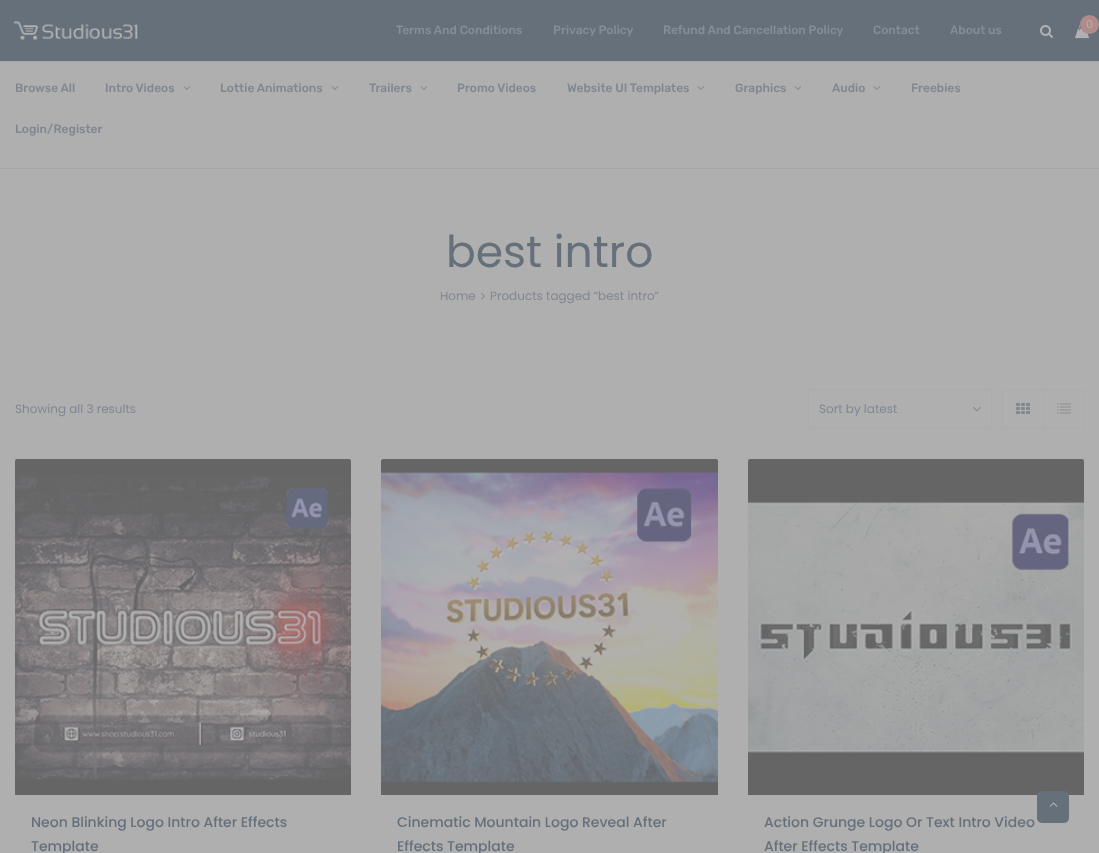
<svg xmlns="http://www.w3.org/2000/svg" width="1099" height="853">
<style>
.a{font:500 12px Rubik;fill:#878d97}
.b{font:11px Poppins;fill:#b1b1b1}
.c{font:500 12px Rubik;fill:#818790}
.d{font:44px Poppins;fill:#65707b}
.e{font:12px Poppins;fill:#818790}
.f{font:500 14px Poppins;fill:#65707b}
</style>
<rect width="100%" height="100%" fill="#afafb0"/>
<path fill="#65707b" d="M0 0h1099v61H0z"/>
<image href="1.png" x="13" y="21" width="125" height="19"/>
<image href="2.png" x="1040" y="25" width="13" height="13"/>
<image href="3.png" x="1075" y="24" width="14" height="15"/>
<circle fill="#b18a8a" cx="1089.5" cy="24.5" r="9.5"/>
<path fill="#a2a7ad" d="M0 61h1099v1H0z"/>
<path fill="#a2a7ad" d="M0 168h1099v1H0z"/>
<image href="4.png" x="183" y="86" width="8" height="4"/>
<image href="4.png" x="331" y="86" width="8" height="4"/>
<image href="4.png" x="420" y="86" width="8" height="4"/>
<image href="4.png" x="697" y="86" width="8" height="4"/>
<image href="4.png" x="794" y="86" width="8" height="4"/>
<image href="4.png" x="873" y="86" width="8" height="4"/>
<image href="5.png" x="481" y="292" width="4" height="8"/>
<image href="6.png" x="973" y="407" width="8" height="4"/>
<rect fill="none" stroke="#ababab" x="808.5" y="389.5" width="183" height="39" rx="1.5"/>
<rect fill="none" stroke="#ababab" x="1002.5" y="389.5" width="81" height="39" rx="1.5"/>
<image href="7.png" x="1016" y="403" width="14" height="11"/>
<path fill="#ababab" d="M1043 390h1v38H1043z"/>
<image href="8.png" x="1057" y="403" width="14" height="11"/>
<image href="9.png" x="15" y="459" width="336" height="336"/>
<image href="10.png" x="381" y="459" width="337" height="336"/>
<image href="11.png" x="748" y="459" width="336" height="336"/>
<rect fill="#65707b" x="1037" y="791" width="32" height="32" rx="5"/>
<image href="12.png" x="1049" y="802" width="9" height="5"/>
<text class="a" x="396" y="34">Terms And Conditions</text>
<text class="a" x="553" y="34">Privacy Policy</text>
<text class="a" x="663" y="34">Refund And Cancellation Policy</text>
<text class="a" x="873" y="34">Contact</text>
<text class="a" x="950" y="34">About us</text>
<text class="b" x="1086" y="28">0</text>
<text class="c" x="15" y="92">Browse All</text>
<text class="c" x="105" y="92">Intro Videos</text>
<text class="c" x="220" y="92">Lottie Animations</text>
<text class="c" x="369" y="92">Trailers</text>
<text class="c" x="457" y="92">Promo Videos</text>
<text class="c" x="567" y="92">Website UI Templates</text>
<text class="c" x="735" y="92">Graphics</text>
<text class="c" x="832" y="92">Audio</text>
<text class="c" x="911" y="92">Freebies</text>
<text class="c" x="15" y="133">Login/Register</text>
<text class="d" x="446" y="267">best intro</text>
<text class="e" x="440" y="300">Home</text>
<text class="e" x="490" y="300">Products tagged “best intro”</text>
<text class="e" x="15" y="413">Showing all 3 results</text>
<text class="e" x="819" y="413">Sort by latest</text>
<text class="f" x="31" y="827">Neon Blinking Logo Intro After Effects</text>
<text class="f" x="31" y="851">Template</text>
<text class="f" x="397" y="827">Cinematic Mountain Logo Reveal After</text>
<text class="f" x="397" y="851">Effects Template</text>
<text class="f" x="764" y="827">Action Grunge Logo Or Text Intro Video</text>
<text class="f" x="764" y="851">After Effects Template</text>
</svg>
